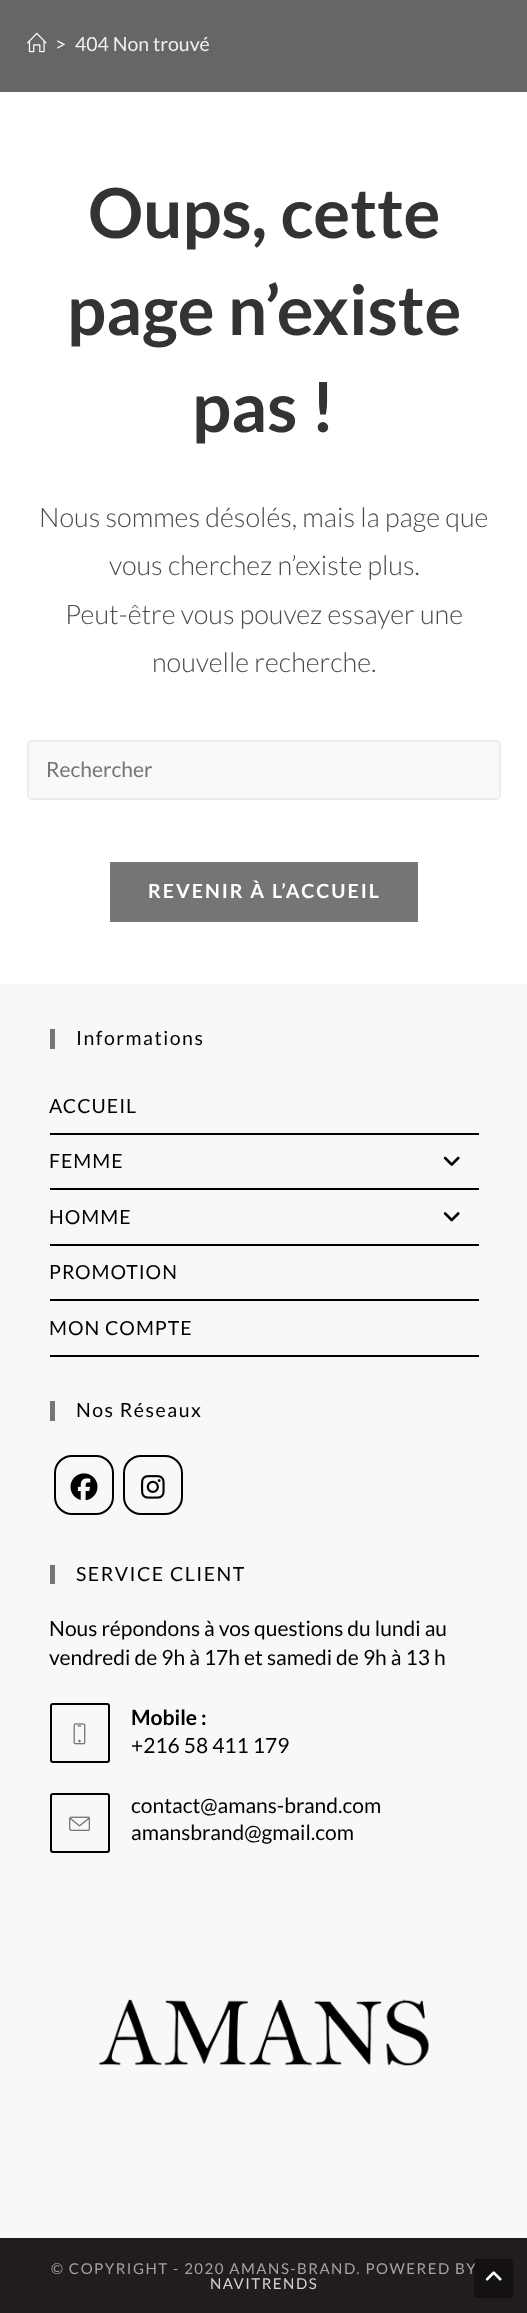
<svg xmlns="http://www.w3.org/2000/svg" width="527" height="2313">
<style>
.a{font:19.5px Lato;fill:#efefef}
.b{font:bold 69px Lato;fill:#333}
.c{font:300 27px Lato;fill:#4a4a4a}
.d{font:21px Lato;fill:#757575}
.e{font:bold 19.5px Lato;letter-spacing:2px;fill:#fff}
.f{font:19.5px Lato;letter-spacing:1.5px;fill:#000}
.g{font:19.5px Lato;letter-spacing:1px;fill:#000}
.h{font:21px Lato;fill:#000}
.i{font:bold 21px Lato;fill:#000}
.j{font:15px Lato;letter-spacing:1.5px;fill:#a3a3a3}
.k{font:15px Lato;letter-spacing:1.5px;fill:#d3d3d3}
</style>
<rect width="100%" height="100%" fill="#fff"/>
<path fill="#666" d="M0 0h527v92H0z"/>
<image href="1.png" x="27" y="32" width="20" height="21"/>
<rect fill="#f9f9f9" stroke="#ececec" stroke-width="2" x="28" y="741" width="472" height="58" rx="4"/>
<path fill="#757575" d="M110 862h308v60H110z"/>
<path fill="#f8f8f8" d="M0 984h527v1254H0z"/>
<path fill="#757575" d="M50 1029h5v20H50z"/>
<path fill="#000" d="M50 1133h429v2H50z"/>
<path fill="#000" d="M50 1188h429v2H50z"/>
<image href="2.png" x="443" y="1156" width="17" height="10"/>
<path fill="#000" d="M50 1244h429v2H50z"/>
<image href="3.png" x="443" y="1212" width="17" height="10"/>
<path fill="#000" d="M50 1299h429v2H50z"/>
<path fill="#000" d="M50 1355h429v2H50z"/>
<path fill="#757575" d="M50 1401h5v20H50z"/>
<rect fill="none" stroke="#000" stroke-width="2" x="55" y="1456" width="58" height="58" rx="17"/>
<image href="4.png" x="70" y="1473" width="28" height="28"/>
<rect fill="none" stroke="#000" stroke-width="2" x="124" y="1456" width="58" height="58" rx="17"/>
<image href="5.png" x="141" y="1475" width="24" height="24"/>
<path fill="#757575" d="M50 1565h5v19H50z"/>
<rect fill="none" stroke="#000" stroke-width="2" x="51" y="1704" width="58" height="58" rx="2"/>
<image href="6.png" x="73" y="1723" width="13" height="22"/>
<rect fill="none" stroke="#000" stroke-width="2" x="51" y="1794" width="58" height="58" rx="2"/>
<image href="7.png" x="69" y="1816" width="21" height="15"/>
<image href="8.png" x="98" y="1999" width="331" height="67"/>
<path fill="#221d1d" d="M0 2238h527v75H0z"/>
<text class="a" x="55" y="51">&gt;</text>
<text class="a" x="75" y="51">404 Non trouvé</text>
<text class="b" x="88" y="238">Oups, cette</text>
<text class="b" x="67" y="335">page n’existe</text>
<text class="b" x="192" y="432">pas !</text>
<text class="c" x="39" y="527">Nous sommes désolés, mais la page que</text>
<text class="c" x="109" y="575">vous cherchez n’existe plus.</text>
<text class="c" x="65" y="624">Peut-être vous pouvez essayer une</text>
<text class="c" x="152" y="672">nouvelle recherche.</text>
<text class="d" x="46" y="777">Rechercher</text>
<text class="e" x="148" y="898">REVENIR À L’ACCUEIL</text>
<text class="f" x="76" y="1045">Informations</text>
<text class="g" x="49" y="1113">ACCUEIL</text>
<text class="g" x="49" y="1168">FEMME</text>
<text class="g" x="49" y="1224">HOMME</text>
<text class="g" x="49" y="1279">PROMOTION</text>
<text class="g" x="49" y="1335">MON COMPTE</text>
<text class="f" x="76" y="1417">Nos Réseaux</text>
<text class="f" x="76" y="1581">SERVICE CLIENT</text>
<text class="h" x="49" y="1636">Nous répondons à vos questions du lundi au</text>
<text class="h" x="49" y="1665">vendredi de 9h à 17h et samedi de 9h à 13 h</text>
<text class="i" x="131" y="1725">Mobile :</text>
<text class="h" x="131" y="1753">+216 58 411 179</text>
<text class="h" x="131" y="1813">contact@amans-brand.com</text>
<text class="h" x="131" y="1840">amansbrand@gmail.com</text>
<text class="j" x="51" y="2274">© COPYRIGHT - 2020 AMANS-BRAND. POWERED BY</text>
<text class="k" x="210" y="2289">NAVITRENDS</text>
<rect fill="#00000066" x="474" y="2259" width="39" height="39" rx="3"/>
<image href="9.png" x="485" y="2271" width="17" height="10"/>
</svg>
